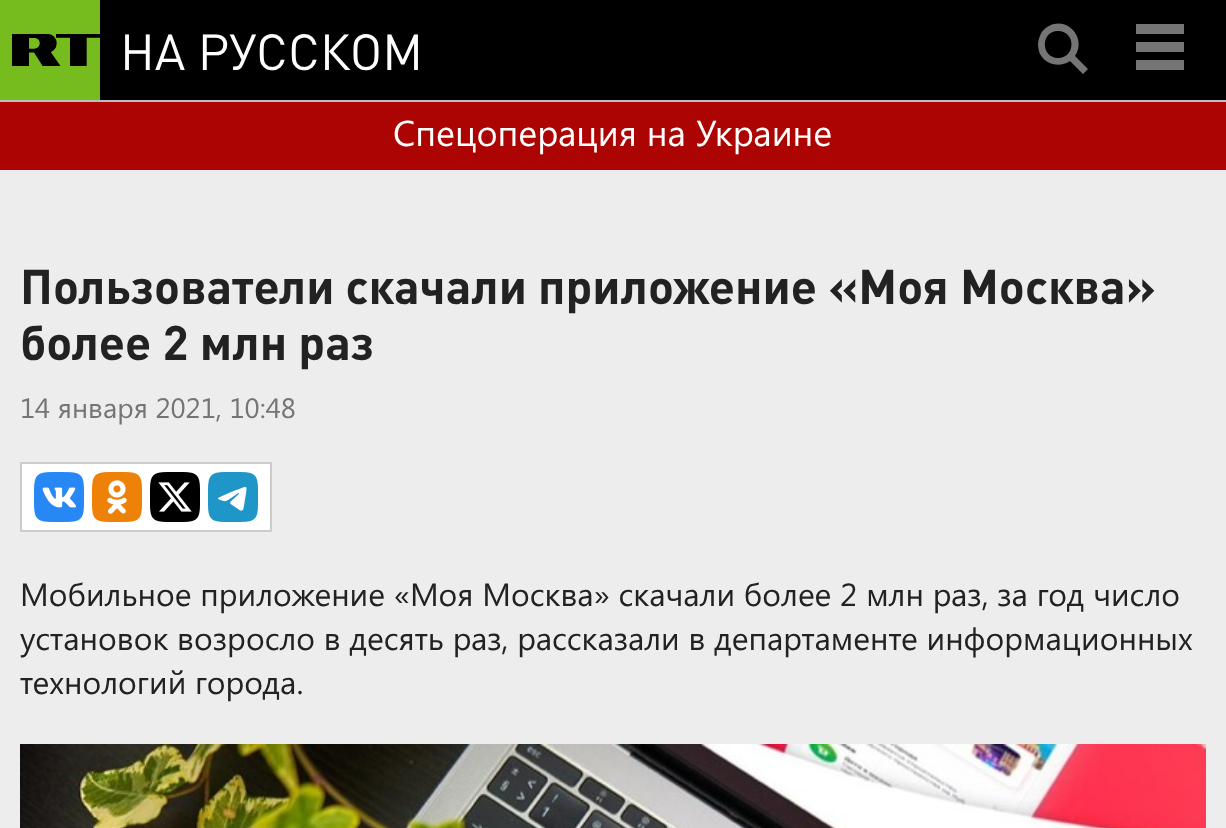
<svg xmlns="http://www.w3.org/2000/svg" width="1226" height="828">
<style>
.a{font:50px DIN;fill:#fff}
.b{font:36px Segoe UI;fill:#fff}
.c{font:bold 48px DIN;fill:#222}
.d{font:28px Segoe UI;fill:#757575}
.e{font:32px Segoe UI;fill:#222}
</style>
<rect width="100%" height="100%" fill="#000"/>
<path fill="#bebebe" d="M0 100h1226v2H0z"/>
<path fill="#77bc1f" d="M0 0h100v100H0z"/>
<image href="1.png" x="12" y="34" width="88" height="32"/>
<path fill="#757575" d="M1088 69l-5 5l-13-13c-10 7-24 4-30-7c-2-5-3-12 0-18c1-4 5-8 9-10c19-10 38 13 26 30zm-30-38c-18 0-17 27 0 27c18 0 18-27 0-27z"/>
<path fill="#757575" d="M1136 60h48v10H1136z"/>
<path fill="#757575" d="M1136 24h48v10H1136z"/>
<path fill="#757575" d="M1136 42h48v10H1136z"/>
<path fill="#ac0303" d="M0 102h1226v68H0z"/>
<path fill="#ededed" d="M0 170h1226v658H0z"/>
<path fill="#fff" stroke="#ccc" stroke-width="2" d="M21 463h250v68H21z"/>
<image href="2.png" x="34" y="472" width="50" height="50"/>
<image href="3.png" x="92" y="472" width="50" height="50"/>
<image href="4.png" x="150" y="472" width="50" height="50"/>
<image href="5.png" x="208" y="472" width="50" height="50"/>
<image href="6.png" x="20" y="744" width="1186" height="84"/>
<text class="a" x="120" y="70">НА РУССКОМ</text>
<text class="b" x="393" y="146">Спецоперация на Украине</text>
<text class="c" x="20" y="304">Пользователи скачали приложение «Моя Москва»</text>
<text class="c" x="20" y="360">более 2 млн раз</text>
<text class="d" x="20" y="418">14 января 2021, 10:48</text>
<text class="e" x="20" y="606">Мобильное приложение «Моя Москва» скачали более 2 млн раз, за год число</text>
<text class="e" x="20" y="650">установок возросло в десять раз, рассказали в департаменте информационных</text>
<text class="e" x="20" y="694">технологий города.</text>
</svg>
